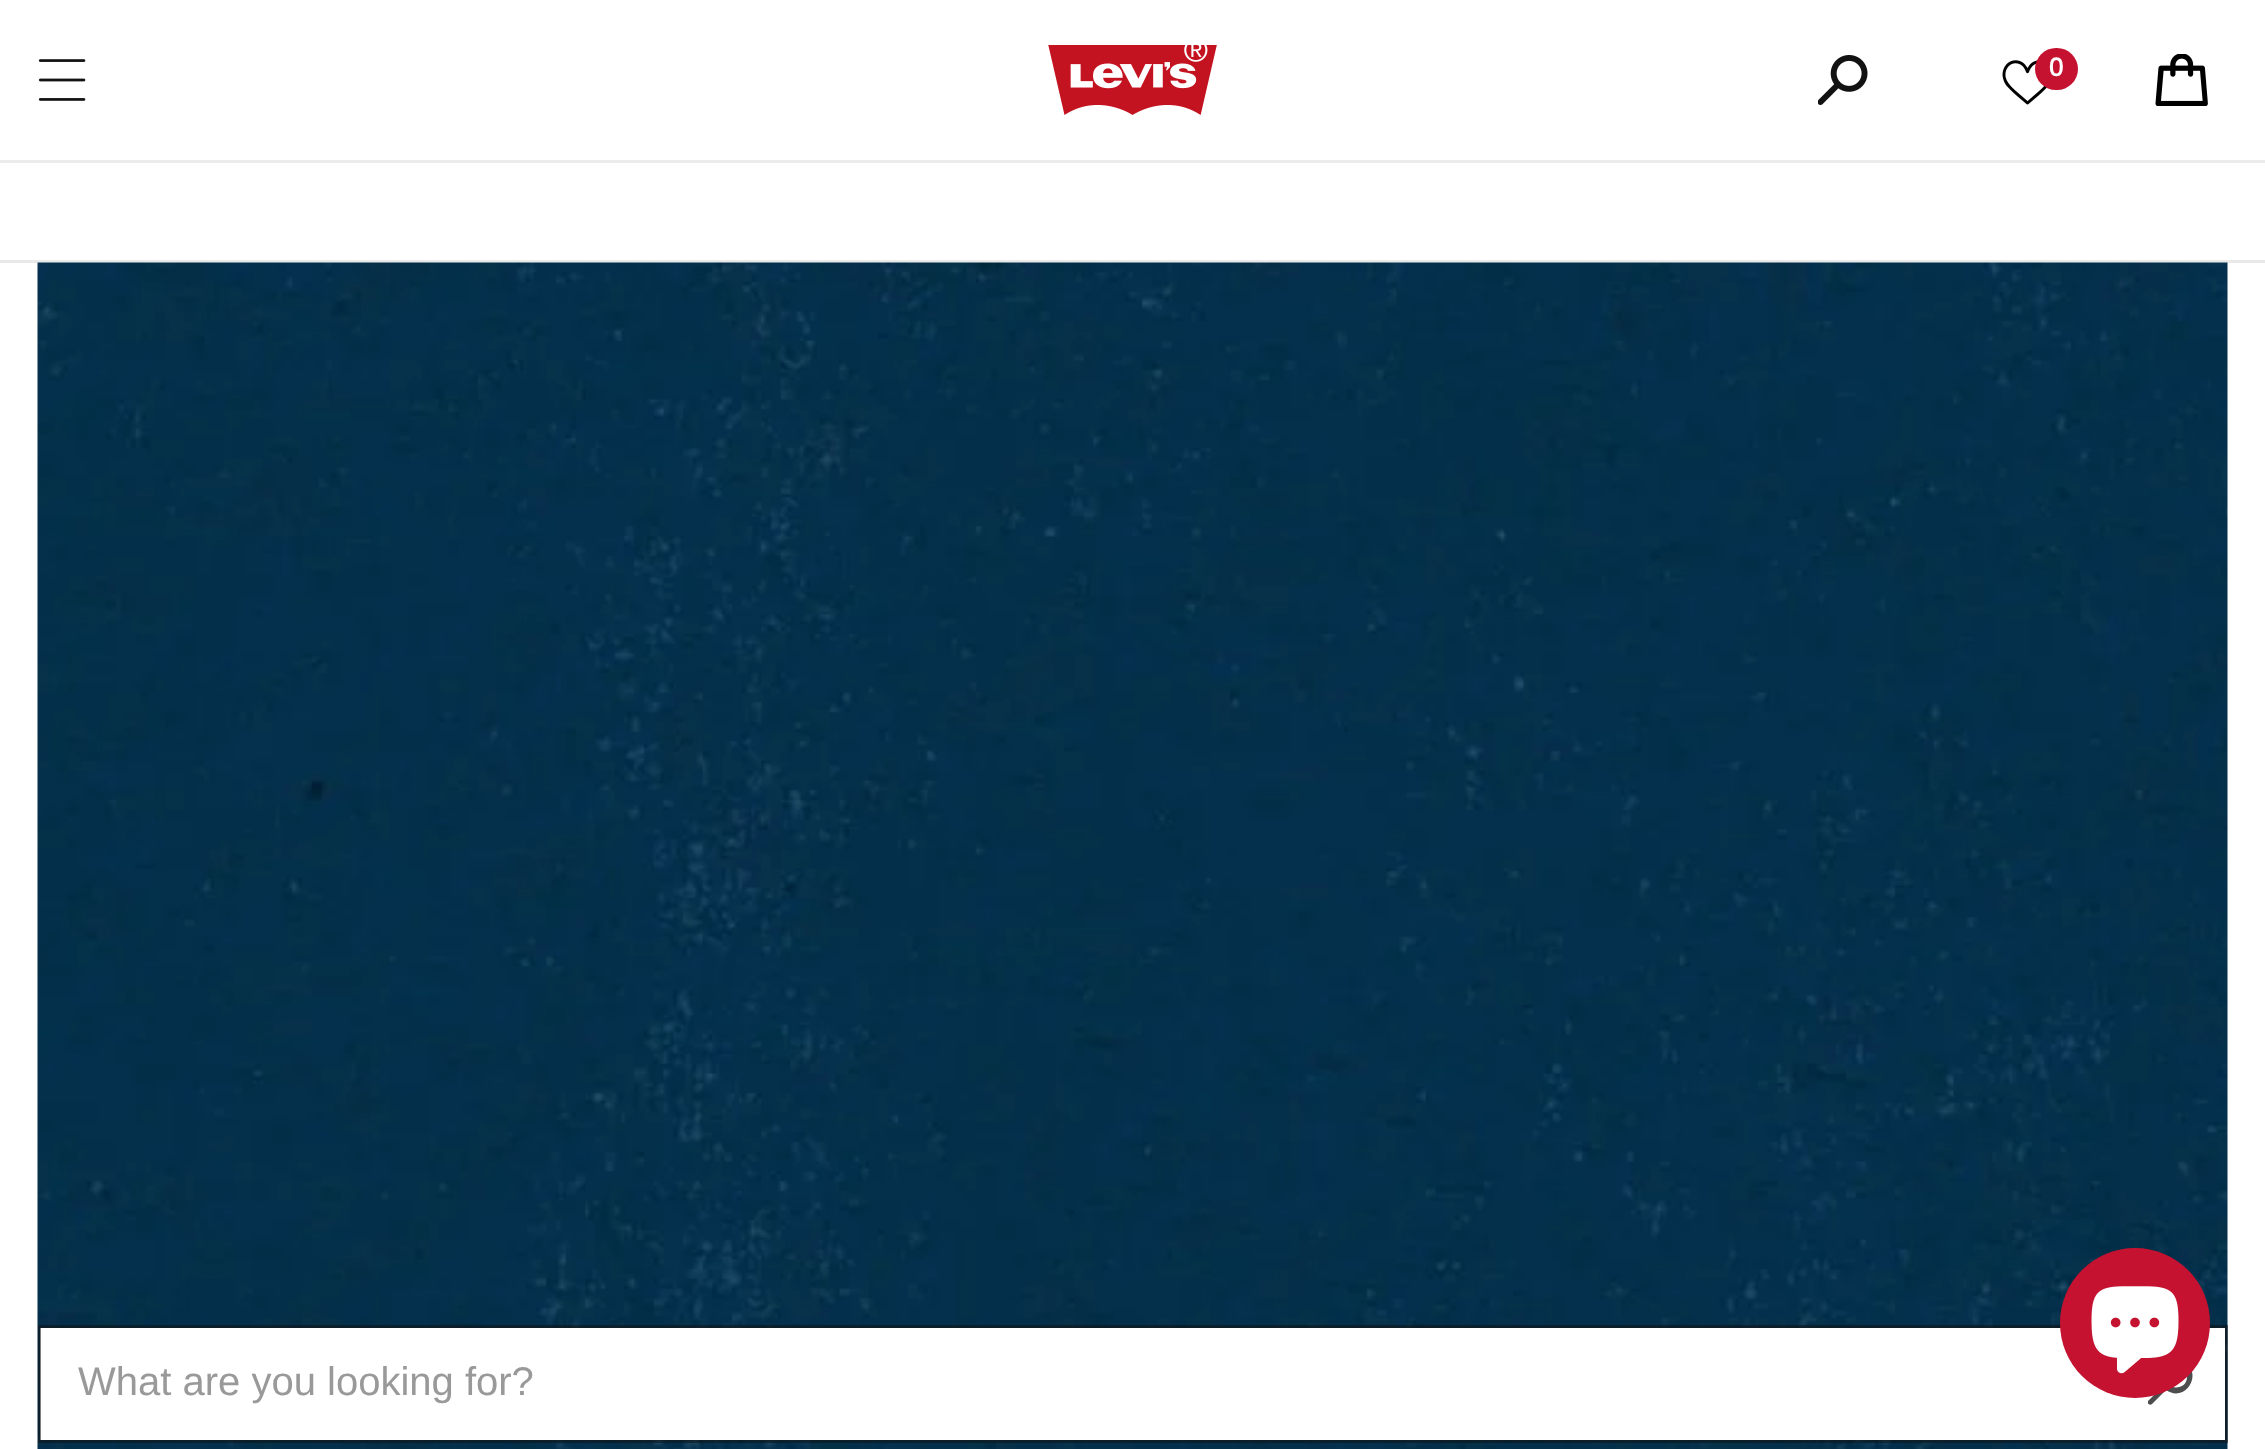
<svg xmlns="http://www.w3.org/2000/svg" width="2265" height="1449">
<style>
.a{font:bold 25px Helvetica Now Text;fill:#fff}
.b{font:40px Liberation Sans;fill:#999}
</style>
<defs>
<clipPath id="clip1"><path d="M2148 1360h45v45H2148z"/></clipPath>
</defs>
<rect width="100%" height="100%" fill="#fff"/>
<path fill="#ececec" d="M0 160h2265v3H0z"/>
<image href="1.png" x="38" y="59" width="48" height="42"/>
<image href="2.png" x="1048" y="45" width="169" height="70"/>
<image href="3.png" x="1818" y="55" width="50" height="50"/>
<image href="4.png" x="2002" y="60" width="45" height="45"/>
<rect fill="#c41230" x="2035" y="48" width="43" height="42" rx="21"/>
<image href="5.png" x="2155" y="54" width="53" height="52"/>
<path fill="#e9e9e9" d="M0 260h2265v3H0z"/>
<image href="6.png" x="37" y="262" width="2191" height="1187"/>
<path fill="#fff" d="M40 1328h2185v112H40z"/>
<g clip-path="url(#clip1)">
<path fill="#4d4d4d" fill-rule="evenodd" d="M2165 1377c0 14 22 14 22 0c0-15-22-15-22 0zm1 13c20 14 39-19 16-29c-4-2-10-1-14 1c-9 5-11 16-5 24l-15 15c-2 2 2 5 4 3z"/>
</g>
<path fill="none" stroke="#1212128c" stroke-width="3" d="M39.5 1326.5h2187v115H39.5z"/>
<circle fill="#c41230" cx="2135" cy="1323" r="75"/>
<image href="7.png" x="2091" y="1286" width="88" height="88"/>
<text class="a" x="2048" y="76">0</text>
<text class="b" x="78" y="1395">What are you looking for?</text>
</svg>
